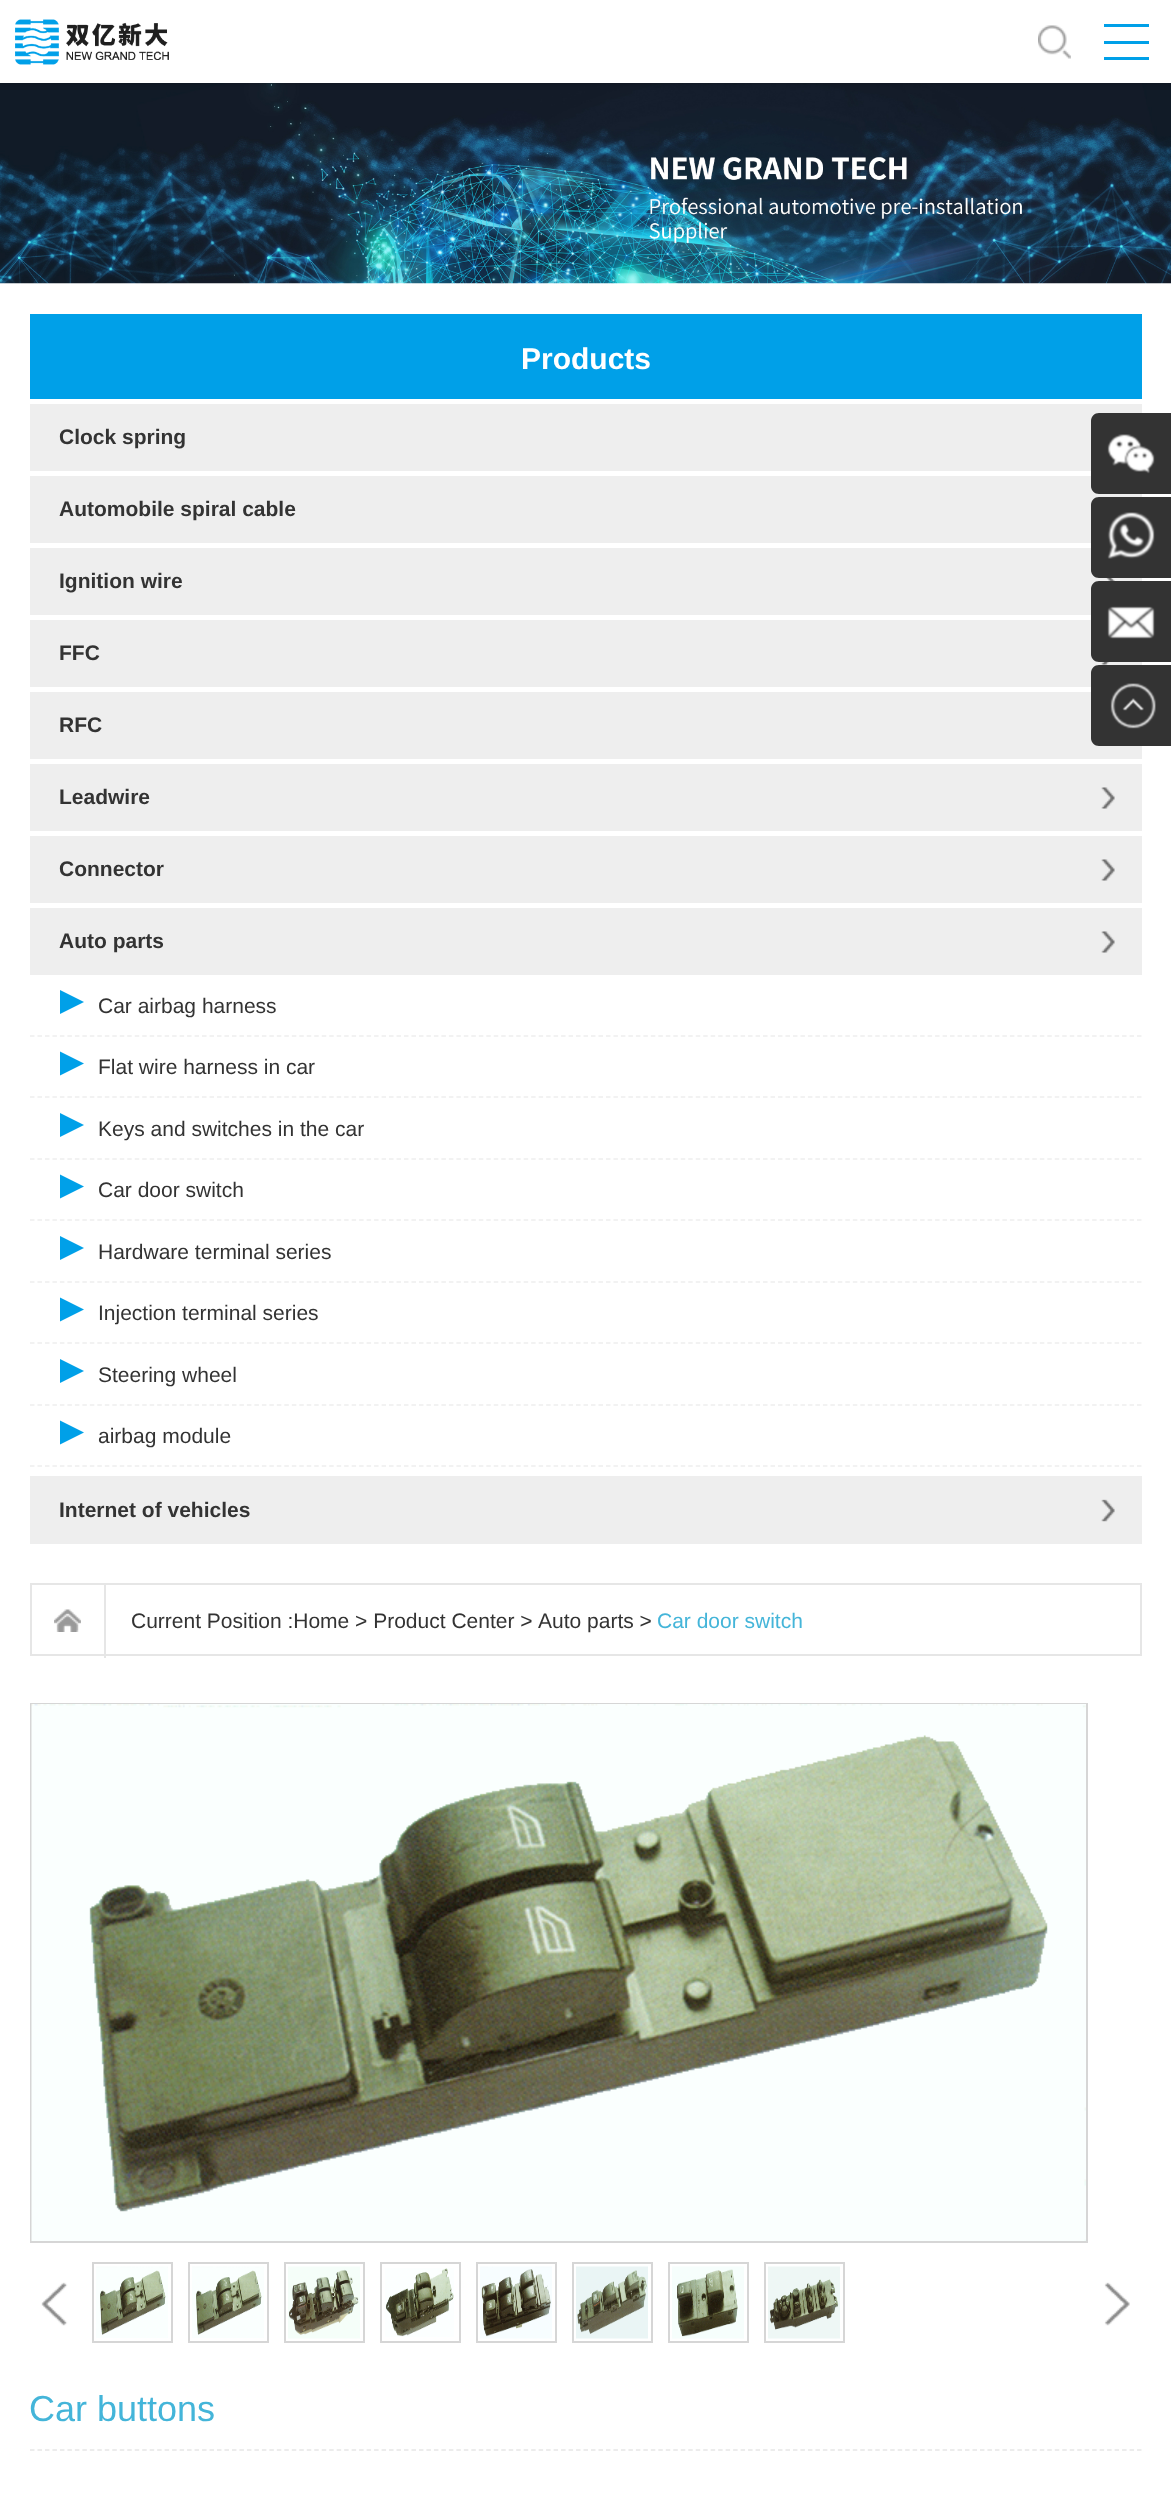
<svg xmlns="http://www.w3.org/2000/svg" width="1171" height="2515">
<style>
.a{font:bold 30px Liberation Sans;fill:#fff}
.b{font:bold 21px Liberation Sans;fill:#333}
.c{font:21px Liberation Sans;fill:#333}
.d{font:21px Liberation Sans;fill:#44b5d9}
.e{font:36px Liberation Sans;fill:#44b5d9}
</style>
<rect width="100%" height="100%" fill="#fff"/>
<image href="3.png" x="0" y="83" width="1171" height="201"/>
<path fill="#0000001a" filter="blur(2px)" d="M-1 0h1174v86H-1z"/>
<path fill="#fff" d="M0 0h1171v83H0z"/>
<image href="1.png" x="15" y="19" width="154" height="46"/>
<image href="2.png" x="1038" y="25" width="33" height="34"/>
<path fill="#00a0e8" d="M1104 24h45v3H1104z"/>
<path fill="#00a0e8" d="M1104 41h45v3H1104z"/>
<path fill="#00a0e8" d="M1104 57h45v3H1104z"/>
<path fill="#00a0e8" d="M30 314h1112v85H30z"/>
<path fill="#eee" d="M30 404h1112v67H30z"/>
<path fill="#eee" d="M30 476h1112v67H30z"/>
<path fill="#eee" d="M30 548h1112v67H30z"/>
<image href="4.png" x="1106" y="578" width="9" height="3"/>
<path fill="#eee" d="M30 620h1112v67H30z"/>
<image href="5.png" x="1101" y="662" width="8" height="3"/>
<path fill="#eee" d="M30 692h1112v67H30z"/>
<path fill="#eee" d="M30 764h1112v67H30z"/>
<image href="6.png" x="1101" y="787" width="14" height="22"/>
<path fill="#eee" d="M30 836h1112v67H30z"/>
<image href="6.png" x="1101" y="859" width="14" height="22"/>
<path fill="#eee" d="M30 908h1112v67H30z"/>
<image href="6.png" x="1101" y="931" width="14" height="22"/>
<path fill="none" stroke="#eee" stroke-width="1.5" stroke-dasharray="4.5 2.98" d="M30 1036h1111.5"/>
<path fill="#00a0e8" d="M60 1014v-24l24 12z"/>
<path fill="none" stroke="#eee" stroke-width="1.5" stroke-dasharray="4.5 2.98" d="M30 1097h1111.5"/>
<path fill="#00a0e8" d="M60 1075.5v-24l24 12z"/>
<path fill="none" stroke="#eee" stroke-width="1.5" stroke-dasharray="4.5 2.98" d="M30 1159h1111.5"/>
<path fill="#00a0e8" d="M60 1137v-24l24 12z"/>
<path fill="none" stroke="#eee" stroke-width="1.5" stroke-dasharray="4.5 2.98" d="M30 1220h1111.5"/>
<path fill="#00a0e8" d="M60 1198.5v-24l24 12z"/>
<path fill="none" stroke="#eee" stroke-width="1.5" stroke-dasharray="4.5 2.98" d="M30 1282h1111.5"/>
<path fill="#00a0e8" d="M60 1260v-24l24 12z"/>
<path fill="none" stroke="#eee" stroke-width="1.5" stroke-dasharray="4.5 2.98" d="M30 1343h1111.5"/>
<path fill="#00a0e8" d="M60 1321.5v-24l24 12z"/>
<path fill="none" stroke="#eee" stroke-width="1.5" stroke-dasharray="4.5 2.98" d="M30 1405h1111.5"/>
<path fill="#00a0e8" d="M60 1383v-24l24 12z"/>
<path fill="none" stroke="#eee" stroke-width="1.5" stroke-dasharray="4.5 2.98" d="M30 1466h1111.5"/>
<path fill="#00a0e8" d="M60 1444.5v-24l24 12z"/>
<path fill="#eee" d="M30 1476h1112v68H30z"/>
<image href="7.png" x="1101" y="1499" width="14" height="23"/>
<path fill="none" stroke="#e6e6e6" stroke-width="2" d="M31 1584h1110v71H31z"/>
<image href="8.png" x="54" y="1609" width="27" height="23"/>
<path fill="#e6e6e6" d="M104 1584h2v74H104z"/>
<path fill="none" stroke="#d6d6d6" stroke-width="2" d="M31 1704h1056v538H31z"/>
<image href="9.png" x="31" y="1704" width="1055" height="537"/>
<image href="10.png" x="41" y="2282" width="27" height="44"/>
<path fill="none" stroke="#d6d6d6" stroke-width="2" d="M93 2263h79v79H93z"/>
<image href="11.png" x="96" y="2266" width="72" height="72"/>
<path fill="none" stroke="#d6d6d6" stroke-width="2" d="M189 2263h79v79H189z"/>
<image href="11.png" x="192" y="2266" width="72" height="72"/>
<path fill="none" stroke="#d6d6d6" stroke-width="2" d="M285 2263h79v79H285z"/>
<image href="12.png" x="288" y="2266" width="72" height="73"/>
<path fill="none" stroke="#d6d6d6" stroke-width="2" d="M381 2263h79v79H381z"/>
<image href="13.png" x="385" y="2268" width="69" height="69"/>
<path fill="none" stroke="#d6d6d6" stroke-width="2" d="M477 2263h79v79H477z"/>
<image href="14.png" x="480" y="2266" width="72" height="73"/>
<path fill="none" stroke="#d6d6d6" stroke-width="2" d="M573 2263h79v79H573z"/>
<image href="15.png" x="576" y="2266" width="72" height="73"/>
<path fill="none" stroke="#d6d6d6" stroke-width="2" d="M669 2263h79v79H669z"/>
<image href="16.png" x="672" y="2266" width="72" height="73"/>
<path fill="none" stroke="#d6d6d6" stroke-width="2" d="M765 2263h79v79H765z"/>
<image href="17.png" x="768" y="2266" width="72" height="73"/>
<image href="18.png" x="1104" y="2282" width="26" height="44"/>
<path fill="none" stroke="#e6e6e6" stroke-width="1.5" stroke-dasharray="4.5 2.98" d="M30 2450h1111.5"/>
<path fill="#333" d="M1099 413h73v81h-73c-4.5 0-8-3.5-8-8v-65c0-4.5 3.5-8 8-8z"/>
<image href="19.png" x="1107" y="434" width="48" height="40"/>
<path fill="#333" d="M1099 497h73v81h-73c-4.5 0-8-3.5-8-8v-65c0-4.5 3.5-8 8-8z"/>
<image href="20.png" x="1107" y="512" width="48" height="47"/>
<path fill="#333" d="M1099 581h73v81h-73c-4.5 0-8-3.5-8-8v-65c0-4.5 3.5-8 8-8z"/>
<image href="21.png" x="1107" y="606" width="48" height="33"/>
<path fill="#333" d="M1099 665h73v81h-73c-4.5 0-8-3.5-8-8v-65c0-4.5 3.5-8 8-8z"/>
<image href="22.png" x="1110" y="683" width="46" height="46"/>
<text class="a" x="521" y="369">Products</text>
<text class="b" x="59" y="444">Clock spring</text>
<text class="b" x="59" y="516">Automobile spiral cable</text>
<text class="b" x="59" y="588">Ignition wire</text>
<text class="b" x="59" y="660">FFC</text>
<text class="b" x="59" y="732">RFC</text>
<text class="b" x="59" y="804">Leadwire</text>
<text class="b" x="59" y="876">Connector</text>
<text class="b" x="59" y="948">Auto parts</text>
<text class="c" x="98" y="1013">Car airbag harness</text>
<text class="c" x="98" y="1074">Flat wire harness in car</text>
<text class="c" x="98" y="1136">Keys and switches in the car</text>
<text class="c" x="98" y="1197">Car door switch</text>
<text class="c" x="98" y="1259">Hardware terminal series</text>
<text class="c" x="98" y="1320">Injection terminal series</text>
<text class="c" x="98" y="1382">Steering wheel</text>
<text class="c" x="98" y="1443">airbag module</text>
<text class="b" x="59" y="1517">Internet of vehicles</text>
<text class="c" x="131" y="1628">Current Position :Home &gt; Product Center &gt;</text>
<text class="c" x="538" y="1628">Auto parts &gt;</text>
<text class="d" x="657" y="1628">Car door switch</text>
<text class="e" x="29" y="2421">Car buttons</text>
</svg>
